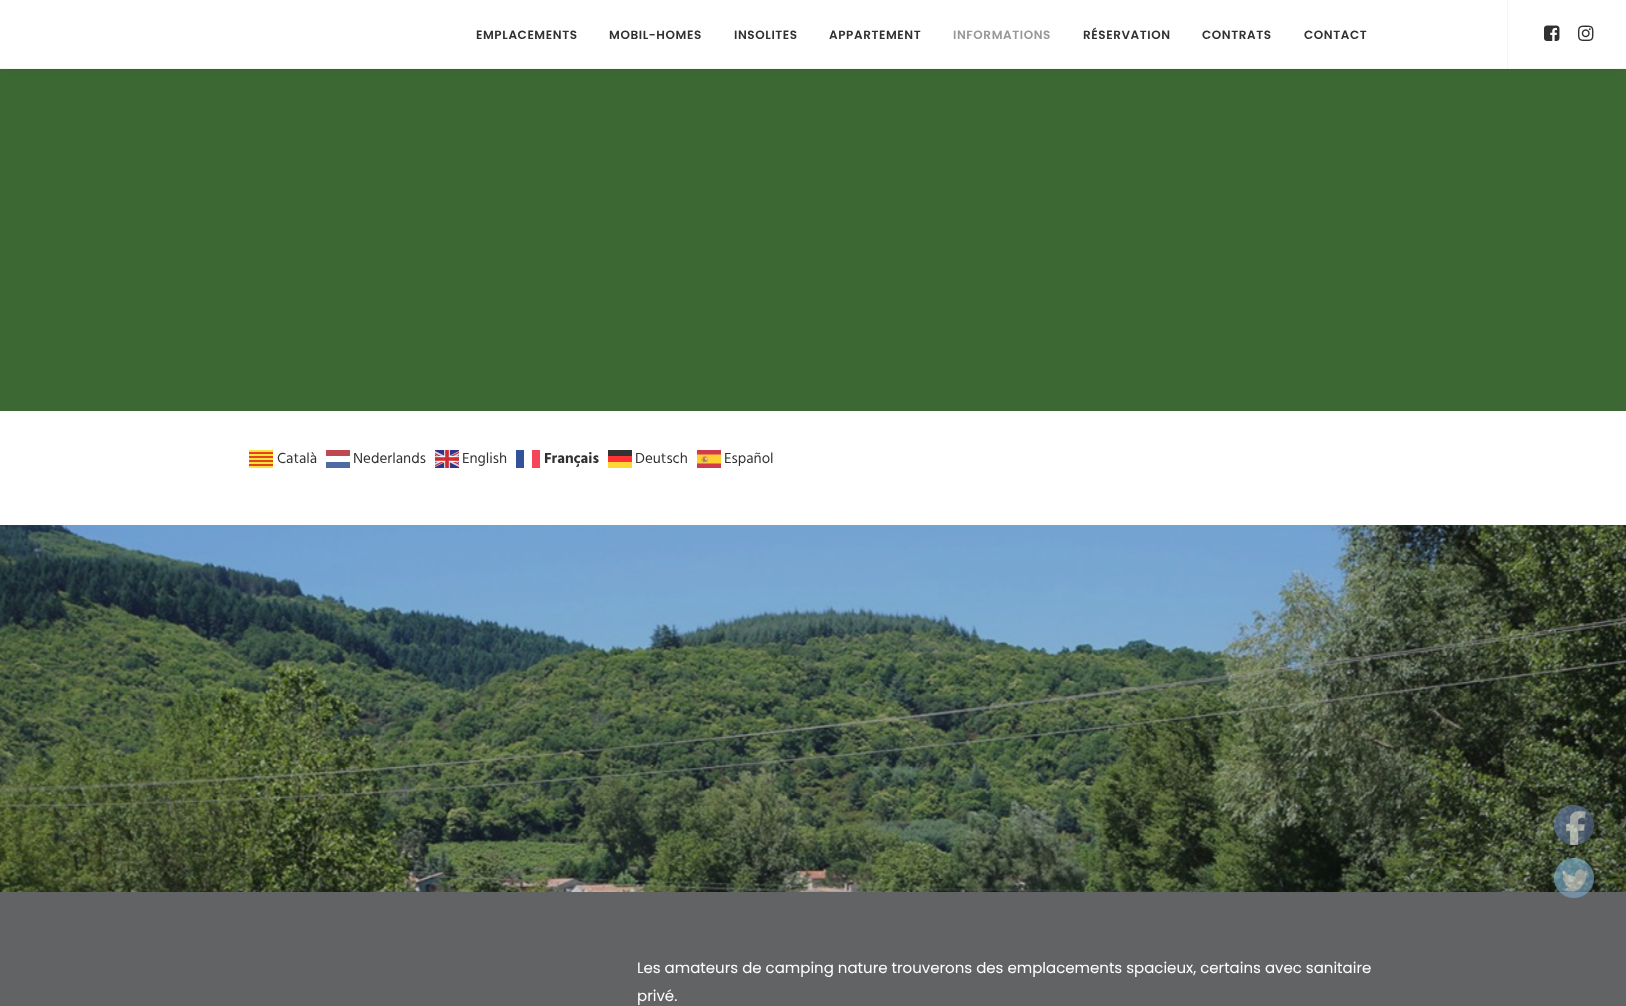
<svg xmlns="http://www.w3.org/2000/svg" width="1626" height="1006">
<style>
.a{font:600 12px Poppins;letter-spacing:0.6px;fill:#303133}
.b{font:600 12px Poppins;letter-spacing:0.6px;fill:#989899}
.c{font:15px Hind;fill:#303133}
.d{font:bold 15px Hind;fill:#303133}
.e{font:15px Poppins;fill:#fff}
</style>
<rect width="100%" height="100%" fill="#fff"/>
<path fill="#3c6933" d="M0 69h1626v342H0z"/>
<path fill="#00000099" filter="blur(5px)" d="M7 14h1612v49H7z"/>
<path fill="#fff" d="M0 3h1626v65H0z"/>
<path fill="#f5f5f5" d="M0 68h1626v1H0z"/>
<path fill="#f5f5f5" d="M1507 0h1v68H1507z"/>
<image href="1.png" x="1544" y="25" width="16" height="16"/>
<image href="2.png" x="1578" y="25" width="16" height="16"/>
<image href="3.png" x="249" y="450" width="24" height="18"/>
<path fill="#4d6ba2" d="M326 462h24v6H326z"/>
<path fill="#be4953" d="M326 450h24v6H326z"/>
<image href="4.png" x="435" y="450" width="24" height="18"/>
<path fill="#335199" d="M516 450h8v18H516z"/>
<path fill="#f54659" d="M532 450h8v18H532z"/>
<path fill="#ffd633" d="M608 462h24v6H608z"/>
<path fill="#333" d="M608 450h24v6H608z"/>
<path fill="#f33" d="M608 456h24v6H608z"/>
<image href="5.png" x="697" y="450" width="24" height="18"/>
<image href="6.png" x="0" y="525" width="1626" height="367"/>
<path fill="#626365" d="M0 892h1626v114H0z"/>
<image href="7.png" x="1554" y="805" width="40" height="40"/>
<image href="8.png" x="1554" y="858" width="40" height="40"/>
<text class="a" x="476" y="39">EMPLACEMENTS</text>
<text class="a" x="609" y="39">MOBIL-HOMES</text>
<text class="a" x="734" y="39">INSOLITES</text>
<text class="a" x="829" y="39">APPARTEMENT</text>
<text class="b" x="953" y="39">INFORMATIONS</text>
<text class="a" x="1083" y="39">RÉSERVATION</text>
<text class="a" x="1202" y="39">CONTRATS</text>
<text class="a" x="1304" y="39">CONTACT</text>
<text class="c" x="277" y="463">Català</text>
<text class="c" x="353" y="463">Nederlands</text>
<text class="c" x="462" y="463">English</text>
<text class="d" x="544" y="463">Français</text>
<text class="c" x="635" y="463">Deutsch</text>
<text class="c" x="724" y="463">Español</text>
<text class="e" x="637" y="973">Les amateurs de camping nature trouverons des emplacements spacieux, certains avec sanitaire</text>
<text class="e" x="637" y="1001">privé.</text>
</svg>
